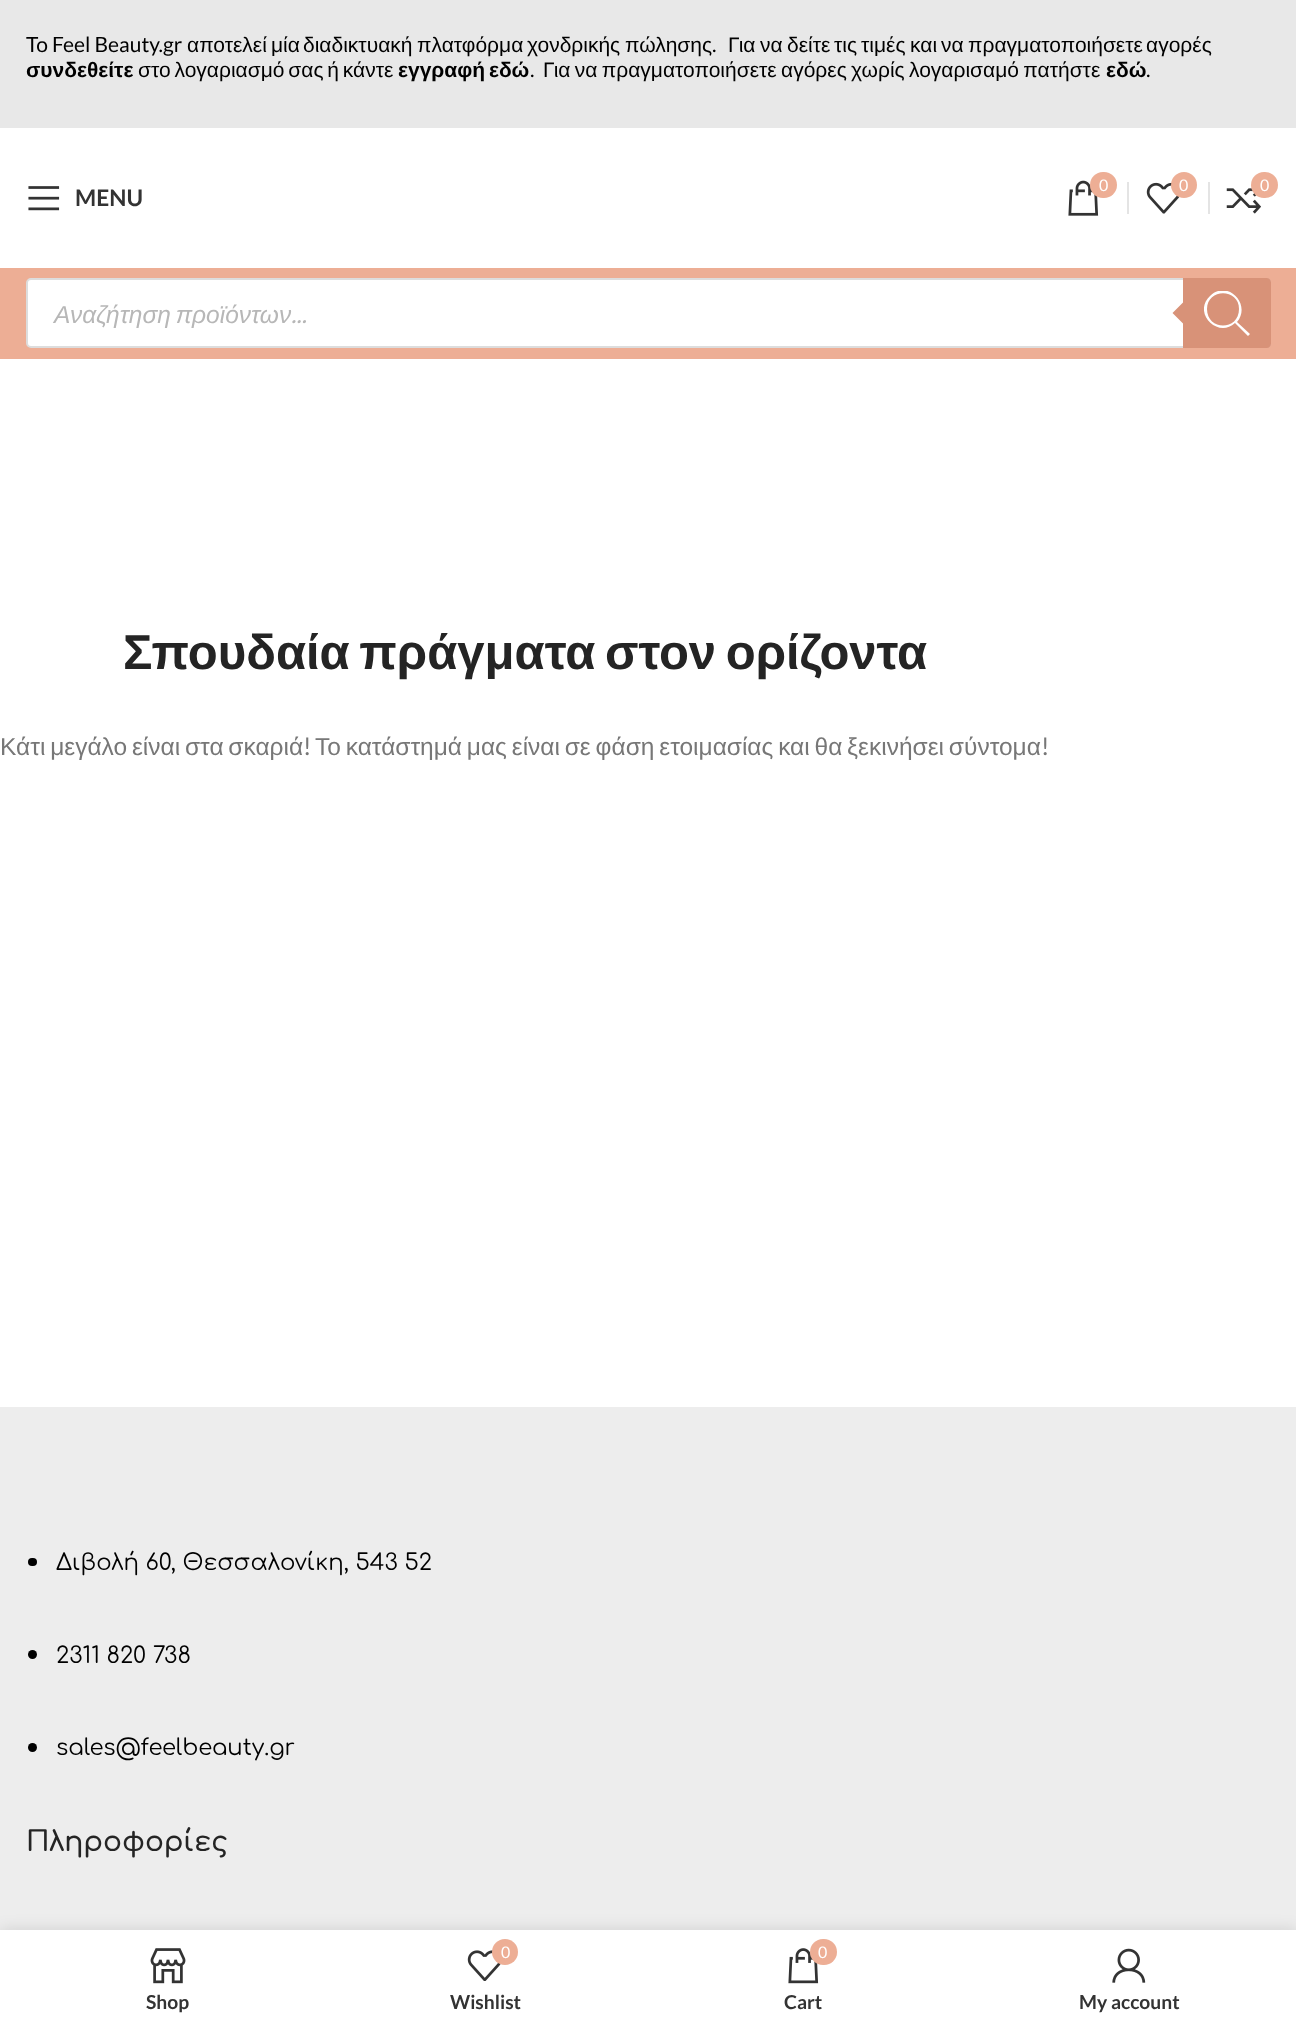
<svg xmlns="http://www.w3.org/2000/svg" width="1296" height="2026">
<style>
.a{font:21px Lato;fill:#000}
.b{font:21px Liberation Sans;fill:#000}
.c{font:bold 21px Liberation Sans;fill:#000}
.d{font:16px Lato;fill:#fff}
.e{font:bold 22.75px Lato;fill:#333}
.f{font:italic 24.5px Liberation Sans;fill:#b7b7b7}
.g{font:italic 24.5px Lato;fill:#b7b7b7}
.h{font:bold 49px Liberation Sans;fill:#242424}
.i{font:24.5px Liberation Sans;fill:#777}
.j{font:24.5px Lato;fill:#777}
.k{font:22.75px Comfortaa;fill:#000}
.l{font:600 28px Comfortaa;fill:#242424}
.m{font:bold 19.25px Lato;fill:#333}
</style>
<defs>
<clipPath id="clip1"><path d="M1204 291h46v45H1204z"/></clipPath>
</defs>
<rect width="100%" height="100%" fill="#fff"/>
<path fill="#e8e8e8" d="M0 0h1296v128H0z"/>
<image href="1.png" x="1068" y="180" width="31" height="36"/>
<rect fill="#edae95" x="1090" y="172" width="27" height="26" rx="13"/>
<path fill="#e4e4e4" d="M1127 182h2v32H1127z"/>
<image href="2.png" x="1146" y="182" width="34" height="32"/>
<circle fill="#edae95" cx="1184" cy="185" r="13"/>
<path fill="#e4e4e4" d="M1208 182h2v32H1208z"/>
<image href="3.png" x="1226" y="188" width="35" height="26"/>
<rect fill="#edae95" x="1251" y="172" width="27" height="26" rx="13"/>
<image href="4.png" x="28" y="186" width="32" height="25"/>
<path fill="#edae95" d="M0 268h1296v91H0z"/>
<rect fill="#fff" stroke="#ddd" stroke-width="2" x="27" y="279" width="1243" height="68" rx="4"/>
<path fill="#d89278" d="M1183 278h84c2 0 4 2 4 4v62c0 2-2 4-4 4h-84z"/>
<path fill="#d89278" d="M1186.5 299v28l-14-14z"/>
<g clip-path="url(#clip1)">
<path fill="#fff" d="M1250 334l-13-12c15-18-10-43-27-26c-18 17 8 43 25 27l13 13zm-43-25c0-21 32-21 32 0c0 22-32 22-32 0z"/>
</g>
<path fill="#ededed" d="M0 1407h1296v523H0z"/>
<rect fill="#000" x="28" y="1558" width="9" height="8" rx="4"/>
<circle fill="#000" cx="32.5" cy="1654.5" r="4.5"/>
<circle fill="#000" cx="32.5" cy="1747.5" r="4.5"/>
<path fill="#0000001f" filter="blur(8px)" d="M0 1930h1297v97H0z"/>
<path fill="#fff" d="M0 1930h1296v96H0z"/>
<image href="5.png" x="150" y="1948" width="36" height="36"/>
<image href="6.png" x="467" y="1950" width="34" height="31"/>
<circle fill="#edae95" cx="505" cy="1952" r="13"/>
<image href="7.png" x="788" y="1948" width="31" height="36"/>
<rect fill="#edae95" x="810" y="1939" width="27" height="26" rx="13"/>
<image href="8.png" x="1112" y="1948" width="34" height="35"/>
<text class="a" x="26" y="52">To Feel Beauty.gr</text>
<text class="b" x="187" y="52">αποτελεί</text>
<text class="b" x="271" y="52">μία</text>
<text class="b" x="303" y="52">διαδικτυακή</text>
<text class="b" x="417" y="52">πλατφόρμα</text>
<text class="b" x="527" y="52">χονδρικής</text>
<text class="b" x="625" y="52">πώλησης</text>
<text class="a" x="712" y="52">.</text>
<text class="b" x="728" y="52">Για</text>
<text class="b" x="760" y="52">να</text>
<text class="b" x="787" y="52">δείτε</text>
<text class="b" x="834" y="52">τις</text>
<text class="b" x="861" y="52">τιμές</text>
<text class="b" x="910" y="52">και</text>
<text class="b" x="941" y="52">να</text>
<text class="b" x="968" y="52">πραγματοποιήσετε</text>
<text class="b" x="1146" y="52">αγορές</text>
<text class="c" x="26" y="77">συνδεθείτε</text>
<text class="b" x="138" y="77" word-spacing="-2">στο λογαριασμό σας ή κάντε</text>
<text class="c" x="398" y="77" word-spacing="-2">εγγραφή εδώ</text>
<text class="a" x="530" y="77">.</text>
<text class="b" x="543" y="77" word-spacing="-1.5">Για να πραγματοποιήσετε αγόρες χωρίς λογαρισαμό πατήστε</text>
<text class="c" x="1106" y="77">εδώ</text>
<text class="a" x="1146" y="77">.</text>
<text class="d" x="1099" y="191">0</text>
<text class="d" x="1179" y="191">0</text>
<text class="d" x="1260" y="191">0</text>
<text class="e" x="75" y="206">MENU</text>
<text class="f" x="54" y="323" word-spacing="-2">Αναζήτηση προϊόντων</text>
<text class="g" x="291" y="323">...</text>
<text class="h" x="123" y="669" word-spacing="-4">Σπουδαία πράγματα στον ορίζοντα</text>
<text class="i" x="0" y="755" word-spacing="-2">Κάτι μεγάλο είναι στα σκαριά</text>
<text class="j" x="303" y="755">!</text>
<text class="i" x="315" y="755" word-spacing="-2">Το κατάστημά μας είναι σε φάση ετοιμασίας και θα ξεκινήσει σύντομα</text>
<text class="j" x="1041" y="755">!</text>
<text class="k" x="56" y="1570">Διβολή 60, Θεσσαλονίκη, 543 52</text>
<text class="k" x="56" y="1663">2311 820 738</text>
<text class="k" x="56" y="1755">sales@feelbeauty.gr</text>
<text class="l" x="26" y="1851">Πληροφορίες</text>
<text class="m" x="146" y="2009">Shop</text>
<text class="d" x="501" y="1958">0</text>
<text class="m" x="450" y="2009">Wishlist</text>
<text class="d" x="818" y="1958">0</text>
<text class="m" x="784" y="2009">Cart</text>
<text class="m" x="1079" y="2009">My account</text>
</svg>
